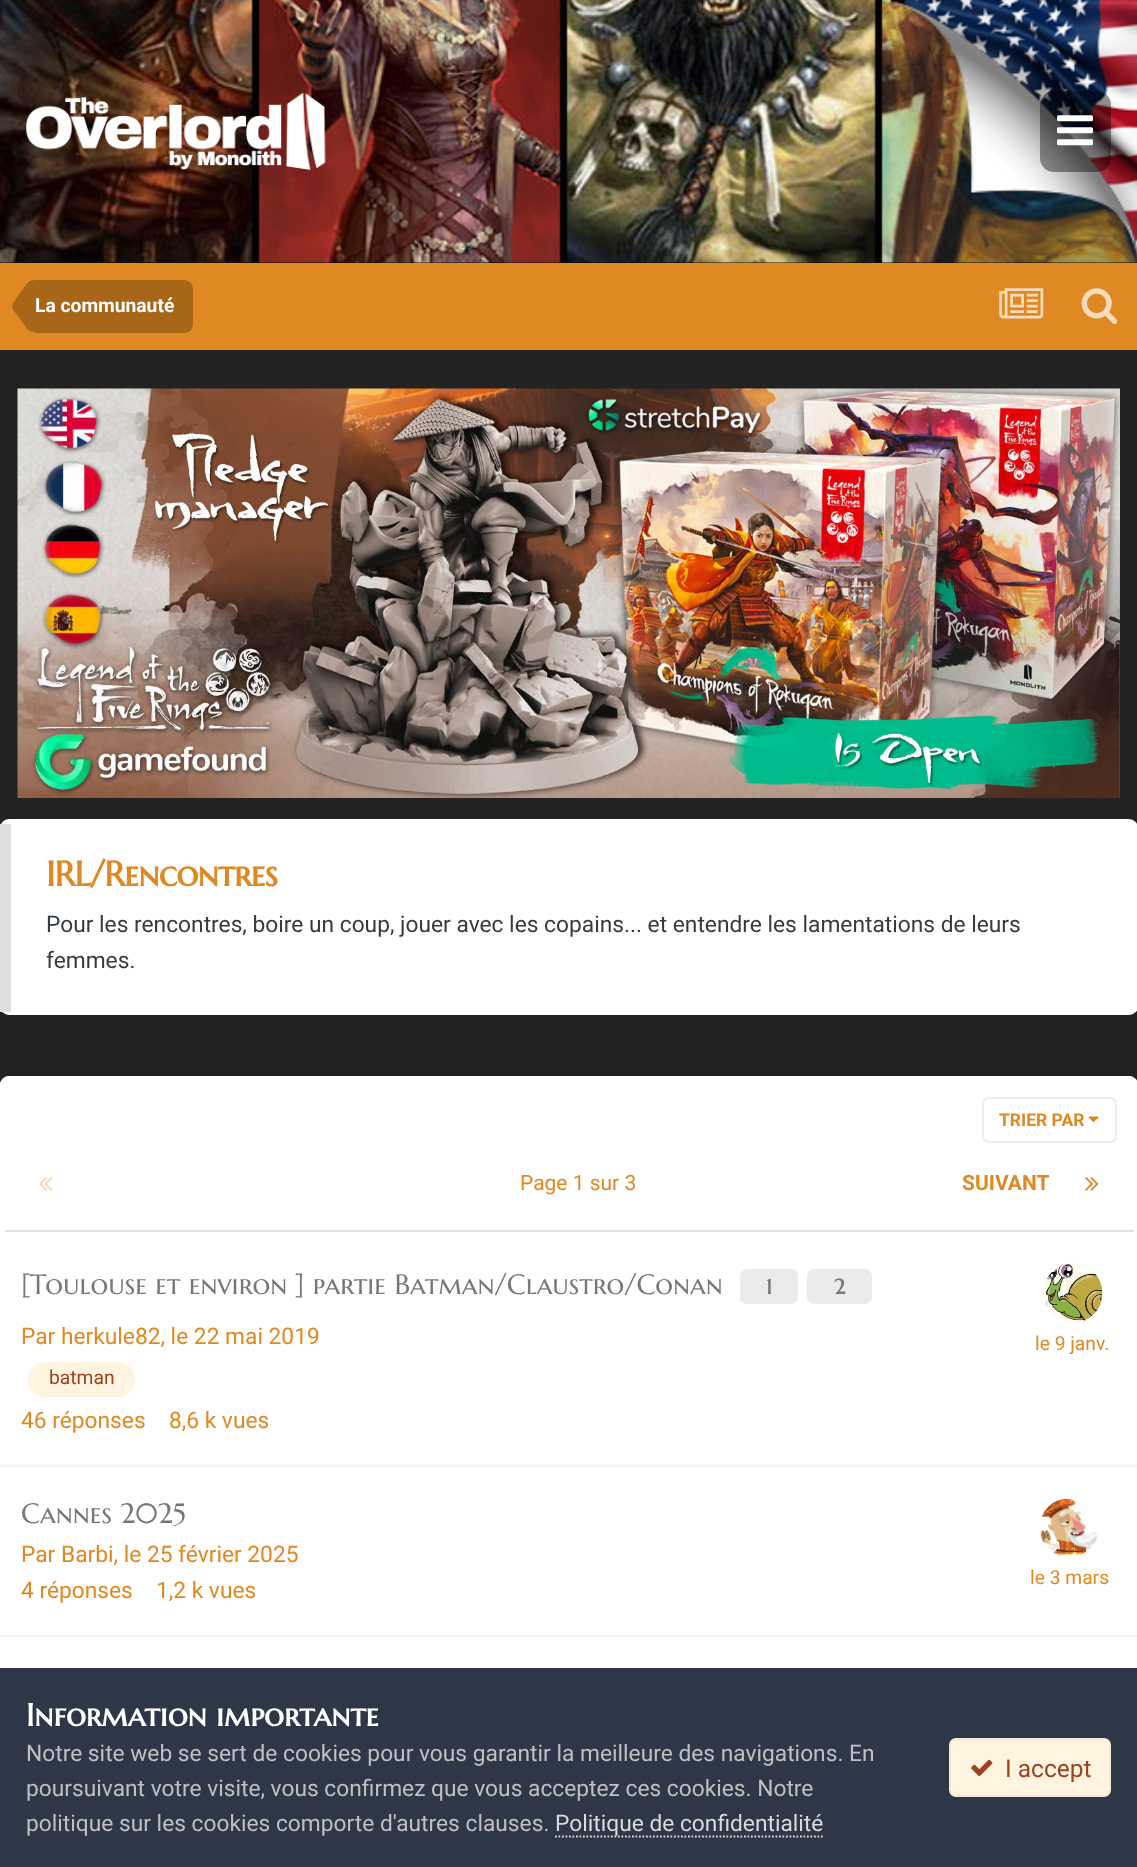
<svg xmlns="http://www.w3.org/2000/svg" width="1137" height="1867">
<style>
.a{font:bold 19.25px Roboto;fill:#fff}
.b{font:bold 35px Marcellus SC;letter-spacing:-0.75px;fill:#e08821}
.c{font:22.75px Roboto;fill:#353c41}
.d{font:bold 17.5px Roboto;fill:#e08821}
.e{font:21px Roboto;fill:#e08821}
.f{font:bold 21px Roboto;fill:#e08821}
.g{font:28px Marcellus SC;fill:#777}
.h{font:bold 21px Marcellus SC;fill:#777}
.i{font:22.75px Roboto;fill:#e08821}
.j{font:19.25px Roboto;fill:#9c4221}
.k{font:19.25px Roboto;fill:#e08821}
.l{font:bold 31.5px Marcellus SC;fill:#fff}
.m{font:22.75px Roboto;fill:#c0c0c0}
.n{font:22.75px Roboto;fill:#dadada}
.o{font:24.5px Roboto;fill:#9c4221}
</style>
<rect width="100%" height="100%" fill="#222"/>
<path fill="#0b0909" d="M0 262h1137v1H0z"/>
<image href="2.png" x="0" y="0" width="1137" height="263"/>
<image href="1.png" x="887" y="0" width="250" height="260"/>
<image href="3.png" x="26" y="92" width="300" height="78"/>
<rect fill="#00000066" x="1040" y="91" width="71" height="81" rx="14"/>
<image href="4.png" x="1057" y="115" width="36" height="31"/>
<path fill="#e08821" d="M0 263h1137v87H0z"/>
<path fill="#a86619" d="M35 280h149c5 0 9 4 9 9v35c0 5-4 9-9 9h-149z"/>
<path fill="#a86619" d="M12.5 309v-3h22.5v26c-4 0-7.5-2-10-6zm22.5-29v26h-22.5c0-1 0-2 .5-3l12-17c2.5-4 6-6 10-6z"/>
<image href="5.png" x="999" y="288" width="45" height="31"/>
<image href="6.png" x="1081" y="288" width="37" height="36"/>
<image href="7.png" x="17" y="388" width="1103" height="410"/>
<rect fill="#fff" y="819" width="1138" height="196" rx="9"/>
<path fill="#dedede" d="M0 824h11v188H0z"/>
<rect fill="#fff" y="1076" width="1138" height="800" rx="9"/>
<rect fill="#fff" y="1076" width="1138" height="156" rx="9"/>
<path fill="#e1e2e3" d="M5 1230h1129v2H5z"/>
<image href="8.png" x="1088" y="1116" width="11" height="7"/>
<rect fill="none" stroke="#ebecec" stroke-width="2" x="983" y="1098" width="133" height="44" rx="6"/>
<image href="9.png" x="39" y="1177" width="14" height="14"/>
<image href="10.png" x="1085" y="1177" width="14" height="14"/>
<path fill="#fcf3e9" d="M0 1465h1137v2H0z"/>
<rect fill="#fff4df" x="28" y="1362" width="107" height="35" rx="17.5"/>
<image href="11.png" x="1043" y="1263" width="60" height="60"/>
<path fill="#fcf3e9" d="M0 1635h1137v2H0z"/>
<image href="12.png" x="1040" y="1498" width="58" height="58"/>
<path fill="#2d3748" d="M0 1668h1137v199H0z"/>
<path fill="none" stroke="#dadada" stroke-width="1.8" stroke-dasharray="1.75 1.75" d="M555 1836.5h269"/>
<rect fill="#fff4df" x="949" y="1738" width="162" height="59" rx="7"/>
<rect fill="none" stroke="#9c422112" stroke-width="2" x="950" y="1739" width="160" height="57" rx="6"/>
<image href="13.png" x="971" y="1759" width="22" height="17"/>
<text class="a" x="35" y="312">La communauté</text>
<text class="b" x="46" y="886">IRL/Rencontres</text>
<text class="c" x="46" y="932">Pour les rencontres, boire un coup, jouer avec les copains... et entendre les lamentations de leurs</text>
<text class="c" x="46" y="968">femmes.</text>
<text class="d" x="999" y="1126">TRIER PAR</text>
<text class="e" x="520" y="1190">Page 1 sur 3</text>
<text class="f" x="962" y="1190">SUIVANT</text>
<text class="g" x="21" y="1294">[Toulouse et environ ] partie Batman/Claustro/Conan</text>
<text class="h" x="766" y="1294">1</text>
<rect fill="#77777726" x="740" y="1269" width="58" height="35" rx="7"/>
<text class="h" x="834" y="1294">2</text>
<rect fill="#77777726" x="807" y="1269" width="65" height="35" rx="7"/>
<text class="i" x="21" y="1344">Par herkule82, le 22 mai 2019</text>
<text class="j" x="49" y="1384">batman</text>
<text class="k" x="1035" y="1350">le 9 janv.</text>
<text class="i" x="21" y="1428">46 réponses</text>
<text class="i" x="169" y="1428">8,6 k vues</text>
<text class="g" x="21" y="1523">Cannes 2025</text>
<text class="i" x="21" y="1562">Par Barbi, le 25 février 2025</text>
<text class="k" x="1030" y="1584">le 3 mars</text>
<text class="i" x="21" y="1598">4 réponses</text>
<text class="i" x="156" y="1598">1,2 k vues</text>
<text class="l" x="26" y="1726">Information importante</text>
<text class="m" x="26" y="1761">Notre site web se sert de cookies pour vous garantir la meilleure des navigations. En</text>
<text class="m" x="26" y="1796">poursuivant votre visite, vous confirmez que vous acceptez ces cookies. Notre</text>
<text class="m" x="26" y="1831">politique sur les cookies comporte d'autres clauses.</text>
<text class="n" x="555" y="1831">Politique de confidentialité</text>
<text class="o" x="1005" y="1777">I accept</text>
</svg>
